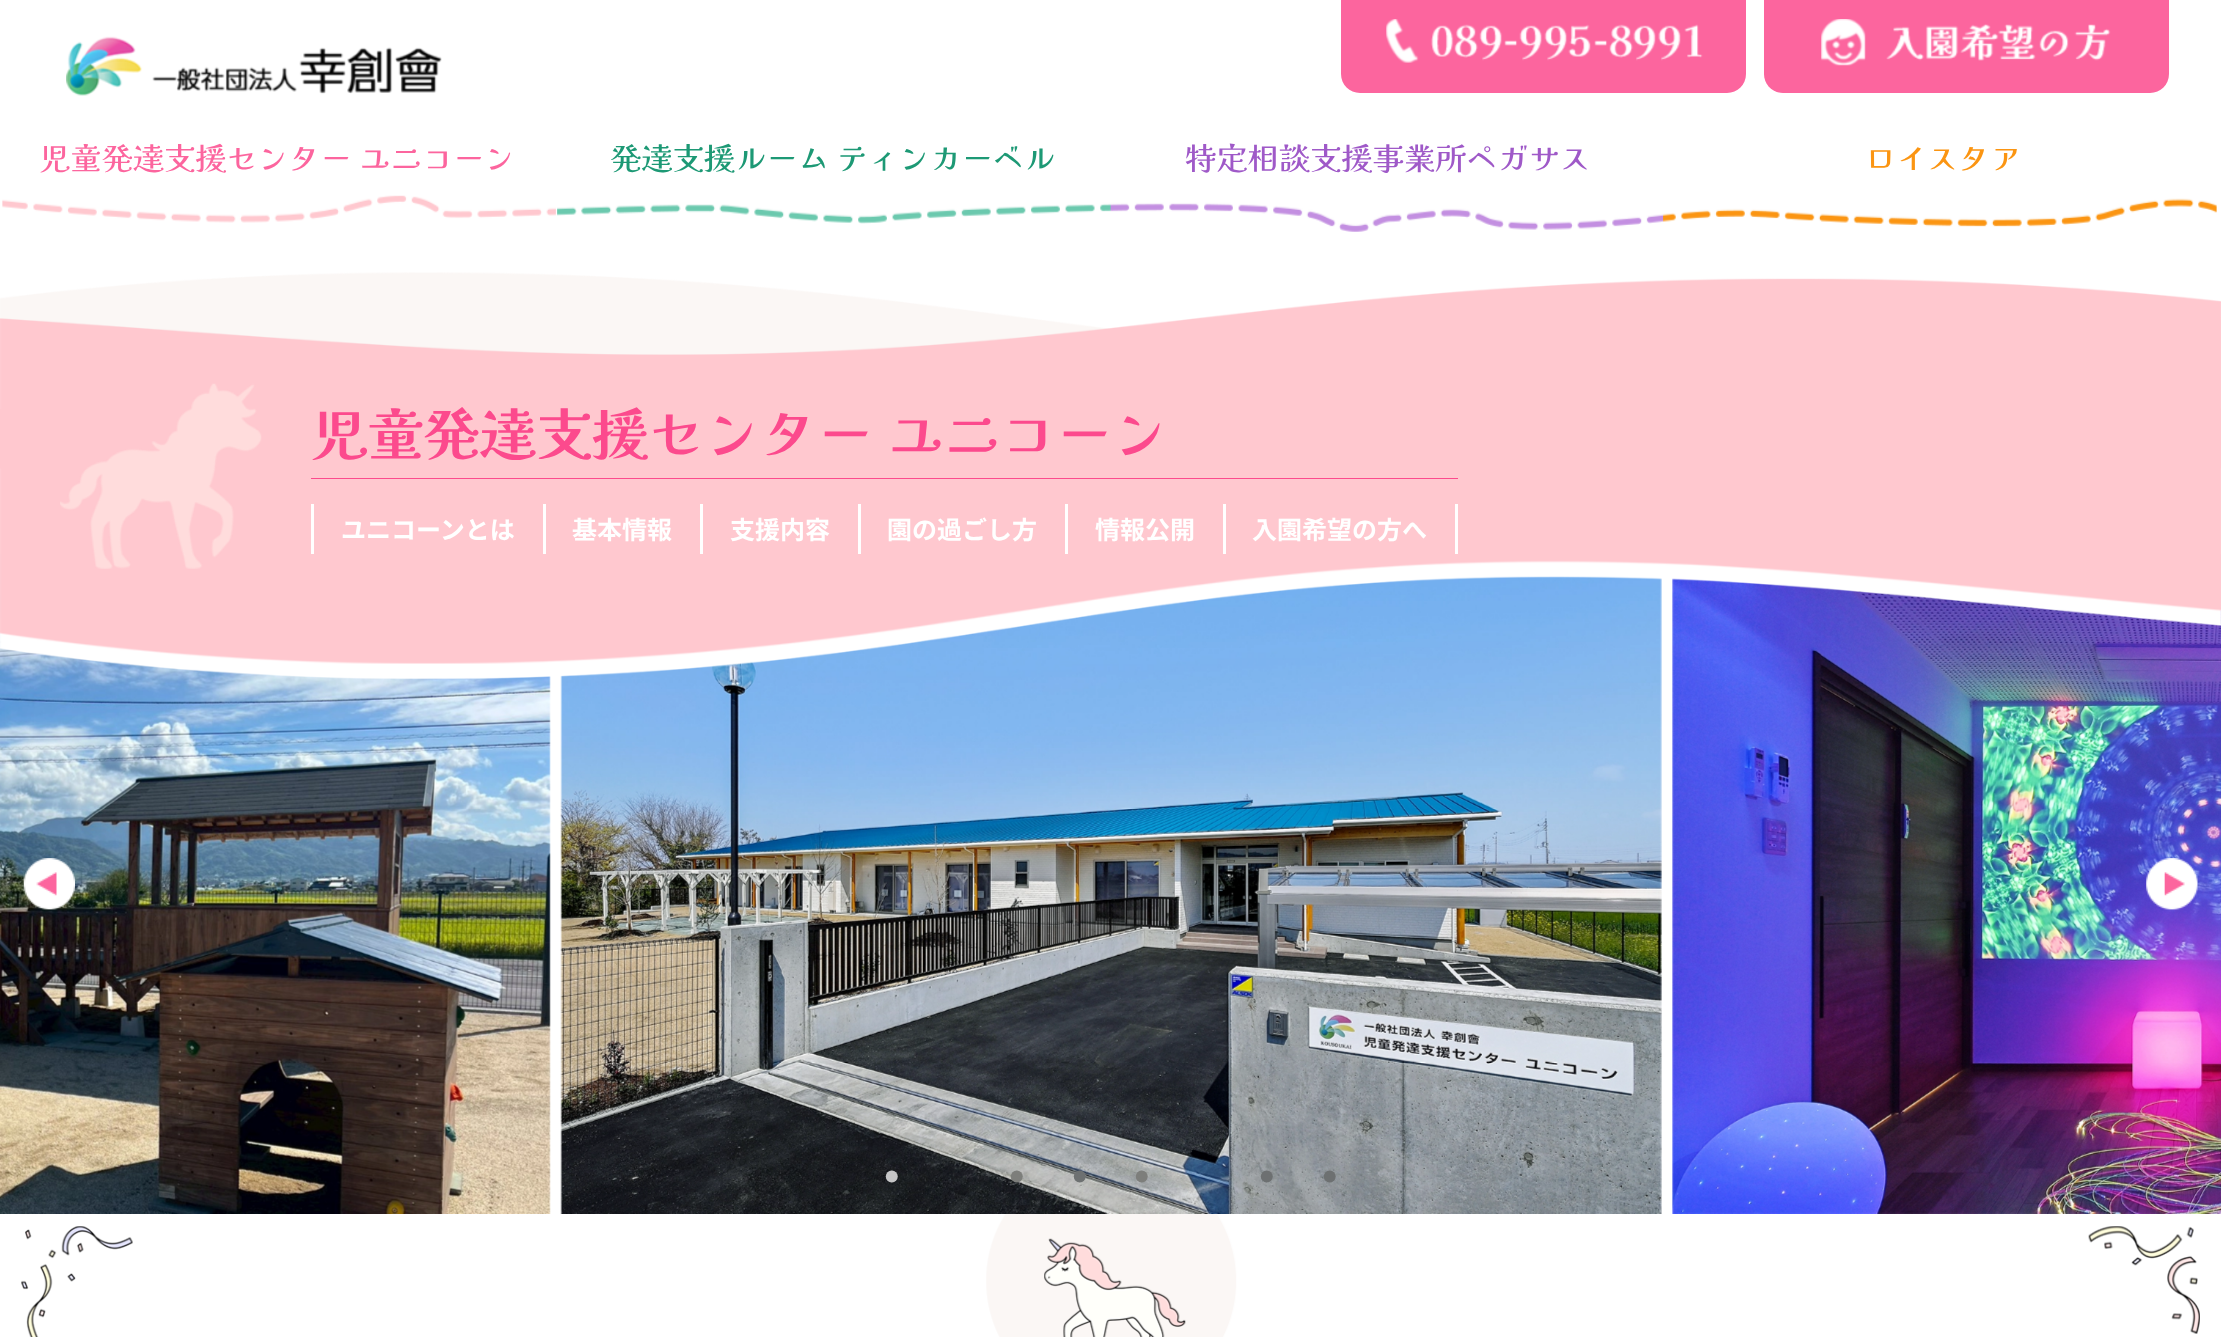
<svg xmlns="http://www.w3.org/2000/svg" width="2221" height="1337">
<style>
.a{font:500 31.25px Kaisei Opti;fill:#fc659e}
.b{font:500 31.25px Kaisei Opti;fill:#1d9975}
.c{font:500 31.25px Kaisei Opti;fill:#9f59c8}
.d{font:500 31.25px Kaisei Opti;fill:#fb9512}
.e{font:bold 56.25px Kaisei Opti;fill:#fc4a8d}
.f{font:bold 25px Noto Sans JP;fill:#fff}
.g{font:50px Liberation Serif;fill:#c6c6c7}
.h{font:50px Liberation Serif;fill:#7d7e7b}
.i{font:50px Liberation Serif;fill:#6d7071}
</style>
<rect width="100%" height="100%" fill="#fff"/>
<image href="1.png" x="2" y="195" width="2215" height="37"/>
<image href="2.png" x="66" y="36" width="376" height="60"/>
<path fill="#fc659e" d="M1341 0h405v74c0 10.5-8.5 19-19 19h-367c-10.5 0-19-8.5-19-19z"/>
<image href="3.png" x="1386" y="19" width="317" height="44"/>
<path fill="#fc659e" d="M1764 0h405v74c0 10.5-8.5 19-19 19h-367c-10.5 0-19-8.5-19-19z"/>
<image href="4.png" x="1821" y="19" width="290" height="47"/>
<image href="6.png" x="0" y="554" width="551" height="660"/>
<image href="7.png" x="560" y="576" width="1102" height="638"/>
<image href="8.png" x="1672" y="554" width="549" height="660"/>
<image href="5.png" x="0" y="272" width="2221" height="407"/>
<path fill="#fc4a8d" d="M311 478h1147v1H311z"/>
<path fill="#fff" d="M311 504h3v50H311z"/>
<path fill="#fff" d="M543 504h3v50H543z"/>
<path fill="#fff" d="M700 504h3v50H700z"/>
<path fill="#fff" d="M858 504h3v50H858z"/>
<path fill="#fff" d="M1065 504h3v50H1065z"/>
<path fill="#fff" d="M1223 504h3v50H1223z"/>
<path fill="#fff" d="M1455 504h3v50H1455z"/>
<image href="9.png" x="23" y="858" width="52" height="52"/>
<image href="10.png" x="2146" y="858" width="52" height="52"/>
<image href="11.png" x="21" y="1214" width="2179" height="123"/>
<text class="a" x="39" y="170">児童発達支援センター ユニコーン</text>
<text class="b" x="610" y="170">発達支援ルーム ティンカーベル</text>
<text class="c" x="1185" y="170">特定相談支援事業所ペガサス</text>
<text class="d" x="1865" y="170">ロイスタア</text>
<text class="e" x="311" y="455">児童発達支援センター ユニコーン</text>
<text class="f" x="341" y="539">ユニコーンとは</text>
<text class="f" x="572" y="539">基本情報</text>
<text class="f" x="730" y="539">支援内容</text>
<text class="f" x="887" y="539">園の過ごし方</text>
<text class="f" x="1095" y="539">情報公開</text>
<text class="f" x="1252" y="539">入園希望の方へ</text>
<text class="g" x="883" y="1193">•</text>
<text class="h" x="1008" y="1193">•</text>
<text class="i" x="1071" y="1193">•</text>
<text class="h" x="1133" y="1193">•</text>
<text class="i" x="1258" y="1193">•</text>
<text class="i" x="1321" y="1193">•</text>
</svg>
